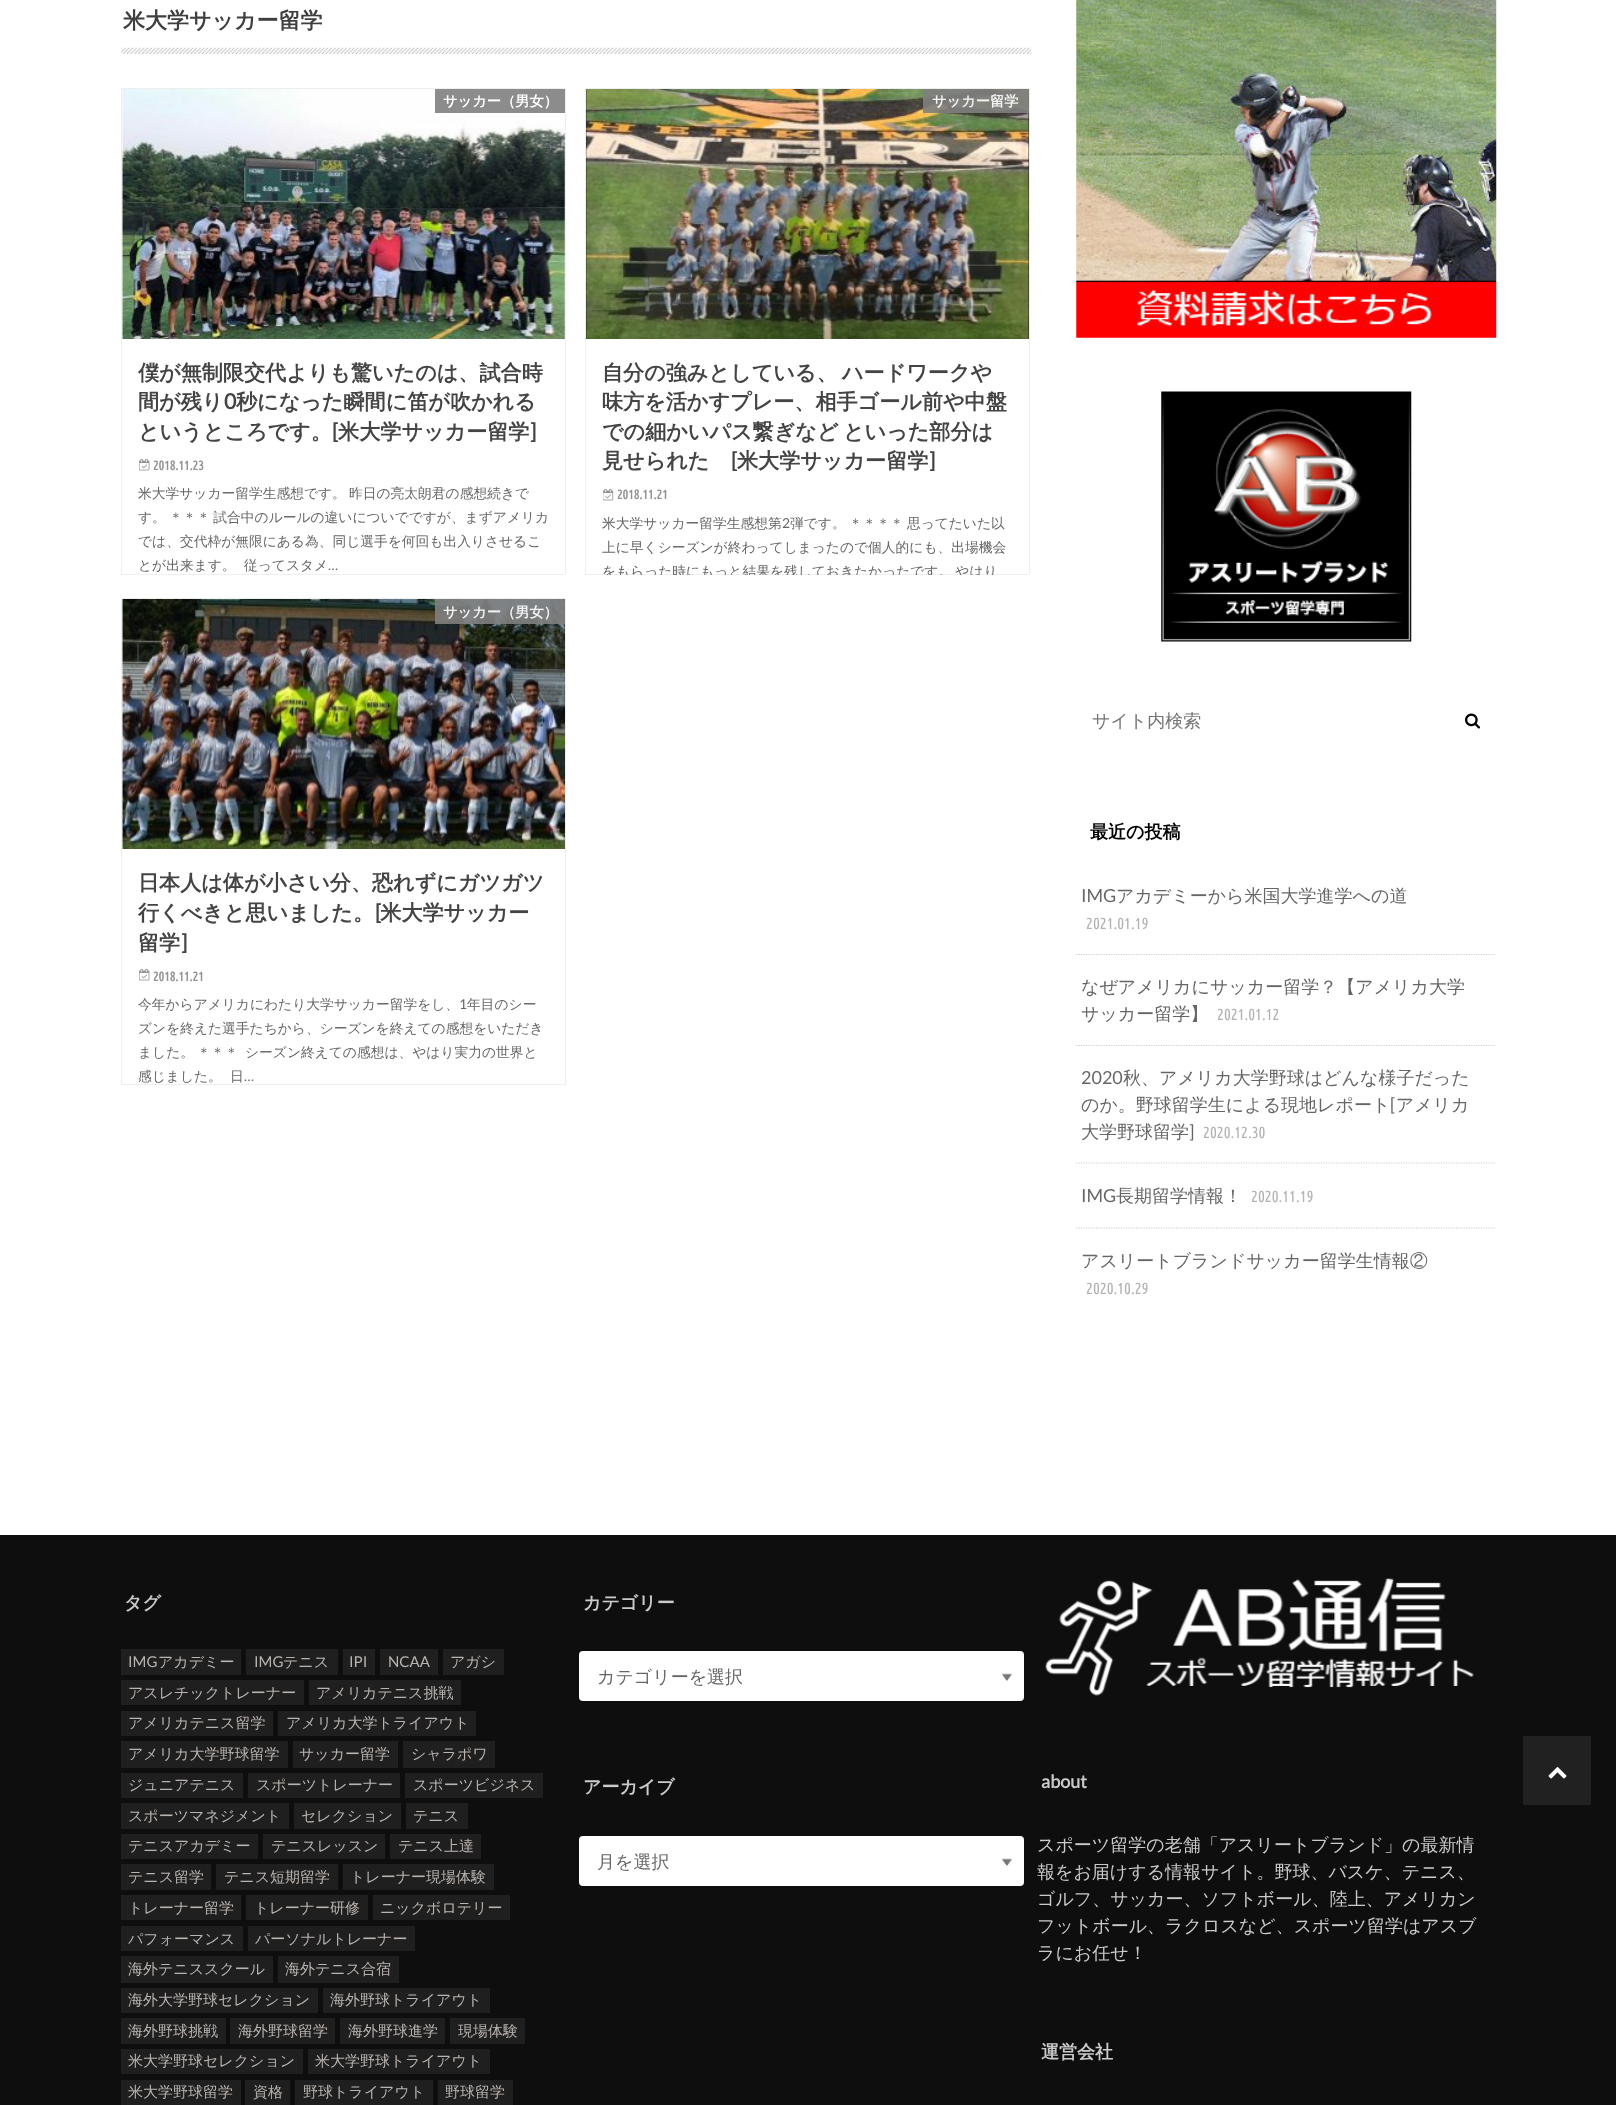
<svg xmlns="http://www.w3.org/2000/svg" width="1616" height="2105">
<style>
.a{font:bold 22px WenQuanYi Zen Hei;fill:#3e3e3e}
.b{font:bold 14.25px WenQuanYi Zen Hei;fill:#fff}
.c{font:bold 21.1px WenQuanYi Zen Hei;fill:#444}
.d{font:bold 21.1px Lato;fill:#444}
.e{font:bold 13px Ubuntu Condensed;fill:#949494}
.f{font:500 13.75px WenQuanYi Zen Hei;fill:#666}
.g{font:13.75px Lato;fill:#666}
.h{font:bold 14.25px WenQuanYi Zen Hei;fill:#f2f2f2}
.i{font:500 18px WenQuanYi Zen Hei;fill:#757575}
.j{font:bold 18px WenQuanYi Zen Hei;fill:#000}
.k{font:18px Lato;fill:#666}
.l{font:500 18px WenQuanYi Zen Hei;fill:#666}
.m{font:16px Ubuntu Condensed;fill:#b3b3b3}
.n{font:bold 18px WenQuanYi Zen Hei;fill:#cacaca}
.o{font:15px Lato;fill:#bab4b0}
.p{font:500 15px WenQuanYi Zen Hei;fill:#bab4b0}
.q{font:bold 18px Lato;fill:#cacaca}
.r{font:500 18px WenQuanYi Zen Hei;fill:#cacaca}
</style>
<defs>
<clipPath id="clip1"><path d="M603 346h410v229H603z"/></clipPath>
</defs>
<rect width="100%" height="100%" fill="#fff"/>
<image href="1.png" x="121" y="47" width="911" height="7"/>
<path fill="none" stroke="#eee" d="M121.5 88.5h444v486H121.5z"/>
<image href="2.png" x="122" y="89" width="443" height="250"/>
<path fill="#808080e6" d="M435 89h130v24H435z"/>
<image href="3.png" x="139" y="458" width="11" height="13"/>
<path fill="none" stroke="#eee" d="M585.5 88.5h444v486H585.5z"/>
<path fill="#000" d="M586 89h443v250H586z"/>
<image href="4.png" x="586" y="89" width="443" height="250"/>
<path fill="#808080e6" d="M923 89h106v24H923z"/>
<image href="5.png" x="603" y="488" width="11" height="13"/>
<path fill="none" stroke="#eee" d="M121.5 598.5h444v486H121.5z"/>
<image href="6.png" x="122" y="599" width="443" height="250"/>
<path fill="#808080e6" d="M435 599h130v25H435z"/>
<image href="3.png" x="139" y="968" width="11" height="13"/>
<image href="7.png" x="1076" y="0" width="421" height="338"/>
<image href="8.png" x="1161" y="391" width="251" height="251"/>
<image href="9.png" x="1465" y="713" width="15" height="16"/>
<path fill="none" stroke="#ccc" stroke-width="1.2" stroke-dasharray="1.25 1.25" d="M1076 954.5h420"/>
<path fill="none" stroke="#ccc" stroke-width="1.2" stroke-dasharray="1.25 1.25" d="M1076 1045.5h420"/>
<path fill="none" stroke="#ccc" stroke-width="1.2" stroke-dasharray="1.25 1.25" d="M1076 1163h420"/>
<path fill="none" stroke="#ccc" stroke-width="1.2" stroke-dasharray="1.25 1.25" d="M1076 1228h420"/>
<path fill="#0e0e0e" d="M0 1535h1616v570H0z"/>
<path fill="#1f1f1f" d="M121 1649h120v26H121z"/>
<path fill="#1f1f1f" d="M246 1649h92v26H246z"/>
<path fill="#1f1f1f" d="M343 1649h32v26H343z"/>
<path fill="#1f1f1f" d="M380 1649h58v26H380z"/>
<path fill="#1f1f1f" d="M443 1649h61v26H443z"/>
<path fill="#1f1f1f" d="M121 1680h183v25H121z"/>
<path fill="#1f1f1f" d="M309 1680h152v25H309z"/>
<path fill="#1f1f1f" d="M121 1711h152v25H121z"/>
<path fill="#1f1f1f" d="M278 1711h198v25H278z"/>
<path fill="#1f1f1f" d="M121 1741h167v27H121z"/>
<path fill="#1f1f1f" d="M293 1741h105v27H293z"/>
<path fill="#1f1f1f" d="M403 1741h92v27H403z"/>
<path fill="#1f1f1f" d="M121 1773h122v25H121z"/>
<path fill="#1f1f1f" d="M248 1773h152v25H248z"/>
<path fill="#1f1f1f" d="M405 1773h138v25H405z"/>
<path fill="#1f1f1f" d="M121 1803h168v26H121z"/>
<path fill="#1f1f1f" d="M294 1803h107v26H294z"/>
<path fill="#1f1f1f" d="M406 1803h62v26H406z"/>
<path fill="#1f1f1f" d="M121 1834h137v25H121z"/>
<path fill="#1f1f1f" d="M263 1834h122v25H263z"/>
<path fill="#1f1f1f" d="M390 1834h91v25H390z"/>
<path fill="#1f1f1f" d="M121 1864h90v26H121z"/>
<path fill="#1f1f1f" d="M216 1864h122v26H216z"/>
<path fill="#1f1f1f" d="M343 1864h151v26H343z"/>
<path fill="#1f1f1f" d="M121 1895h120v25H121z"/>
<path fill="#1f1f1f" d="M246 1895h122v25H246z"/>
<path fill="#1f1f1f" d="M373 1895h137v25H373z"/>
<path fill="#1f1f1f" d="M121 1926h122v25H121z"/>
<path fill="#1f1f1f" d="M248 1926h167v25H248z"/>
<path fill="#1f1f1f" d="M121 1956h152v27H121z"/>
<path fill="#1f1f1f" d="M278 1956h121v27H278z"/>
<path fill="#1f1f1f" d="M121 1988h197v25H121z"/>
<path fill="#1f1f1f" d="M323 1988h167v25H323z"/>
<path fill="#1f1f1f" d="M121 2018h105v26H121z"/>
<path fill="#1f1f1f" d="M230 2018h105v26H230z"/>
<path fill="#1f1f1f" d="M340 2018h105v26H340z"/>
<path fill="#1f1f1f" d="M450 2018h75v26H450z"/>
<path fill="#1f1f1f" d="M121 2049h182v25H121z"/>
<path fill="#1f1f1f" d="M308 2049h182v25H308z"/>
<path fill="#1f1f1f" d="M121 2080h120v25H121z"/>
<path fill="#1f1f1f" d="M245 2080h45v25H245z"/>
<path fill="#1f1f1f" d="M295 2080h138v25H295z"/>
<path fill="#1f1f1f" d="M438 2080h75v25H438z"/>
<rect fill="#fff" x="579" y="1651" width="445" height="50" rx="4"/>
<image href="10.png" x="1002" y="1673" width="10" height="8"/>
<rect fill="#fff" x="579" y="1836" width="445" height="50" rx="4"/>
<image href="10.png" x="1002" y="1858" width="10" height="8"/>
<image href="11.png" x="1045" y="1578" width="429" height="118"/>
<path fill="#212121" d="M1523 1736h68v69H1523z"/>
<image href="12.png" x="1548" y="1767" width="19" height="12"/>
<text class="a" x="123" y="28">米大学サッカー留学</text>
<text class="b" x="443" y="106">サッカー（男女）</text>
<text class="c" x="138" y="380">僕が無制限交代よりも驚いたのは、試合時</text>
<text class="c" x="138" y="409">間が残り</text>
<text class="d" x="224" y="409">0</text>
<text class="c" x="236" y="409">秒になった瞬間に笛が吹かれる</text>
<text class="c" x="138" y="439">というところです。 米大学サッカー留学</text>
<text class="d" x="332" y="439">[</text>
<text class="d" x="530" y="439">]</text>
<text class="e" x="153" y="470">2018.11.23</text>
<text class="f" x="138" y="498" word-spacing="-1">米大学サッカー留学生感想です。 昨日の亮太朗君の感想続きで</text>
<text class="f" x="138" y="522" word-spacing="-1">す。 ＊＊＊ 試合中のルールの違いについでですが、まずアメリカ</text>
<text class="f" x="138" y="546">では、交代枠が無限にある為、同じ選手を何回も出入りさせるこ</text>
<text class="f" x="138" y="570">とが出来ます。</text>
<text class="f" x="244" y="570">従ってスタメ</text>
<text class="g" x="328" y="570">…</text>
<text class="h" x="932" y="106">サッカー留学</text>
<text class="c" x="602" y="380">自分の強みとしている、</text>
<text class="c" x="842" y="380">ハードワークや</text>
<text class="c" x="602" y="409">味方を活かすプレー、相手ゴール前や中盤</text>
<text class="c" x="602" y="439">での細かいパス繋ぎなど</text>
<text class="c" x="843" y="439">といった部分は</text>
<text class="c" x="602" y="468">見せられた</text>
<text class="d" x="731" y="468">[</text>
<text class="c" x="737" y="468">米大学サッカー留学</text>
<text class="d" x="929" y="468">]</text>
<text class="e" x="617" y="499">2018.11.21</text>
<text class="f" x="602" y="528">米大学サッカー留学生感想第</text>
<text class="g" x="782" y="528">2</text>
<text class="f" x="790" y="528" word-spacing="-1">弾です。 ＊＊＊＊ 思ってたいた以</text>
<text class="f" x="602" y="552">上に早くシーズンが終わってしまったので個人的にも、出場機会</text>
<g clip-path="url(#clip1)">
<text class="f" x="602" y="576" word-spacing="-1">をもらった時にもっと結果を残しておきたかったです。 やはり</text>
</g>
<text class="h" x="443" y="617">サッカー（男女）</text>
<text class="c" x="138" y="890">日本人は体が小さい分、恐れずにガツガツ</text>
<text class="c" x="138" y="920">行くべきと思いました。 米大学サッカー</text>
<text class="d" x="375" y="920">[</text>
<text class="c" x="138" y="950">留学</text>
<text class="d" x="181" y="950">]</text>
<text class="e" x="153" y="981">2018.11.21</text>
<text class="f" x="138" y="1009">今年からアメリカにわたり大学サッカー留学をし、</text>
<text class="g" x="459" y="1009">1</text>
<text class="f" x="467" y="1009">年目のシー</text>
<text class="f" x="138" y="1033">ズンを終えた選手たちから、シーズンを終えての感想をいただき</text>
<text class="f" x="138" y="1057" word-spacing="-1">ました。 ＊＊＊</text>
<text class="f" x="245" y="1057">シーズン終えての感想は、やはり実力の世界と</text>
<text class="f" x="138" y="1081">感じました。</text>
<text class="f" x="230" y="1081">日</text>
<text class="g" x="244" y="1081">…</text>
<text class="i" x="1092" y="727">サイト内検索</text>
<text class="j" x="1090" y="838">最近の投稿</text>
<text class="k" x="1081" y="902">IMG</text>
<text class="l" x="1116" y="902">アカデミーから米国大学進学への道</text>
<text class="m" x="1086" y="929">2021.01.19</text>
<text class="l" x="1081" y="993">なぜアメリカにサッカー留学？【アメリカ大学</text>
<text class="l" x="1081" y="1020">サッカー留学】</text>
<text class="m" x="1217" y="1020">2021.01.12</text>
<text class="k" x="1081" y="1084">2020</text>
<text class="l" x="1123" y="1084">秋、アメリカ大学野球はどんな様子だった</text>
<text class="l" x="1081" y="1111">のか。野球留学生による現地レポート アメリカ</text>
<text class="k" x="1390" y="1111">[</text>
<text class="l" x="1081" y="1138">大学野球留学</text>
<text class="k" x="1189" y="1138">]</text>
<text class="m" x="1203" y="1138">2020.12.30</text>
<text class="k" x="1081" y="1202">IMG</text>
<text class="l" x="1116" y="1202">長期留学情報！</text>
<text class="m" x="1251" y="1202">2020.11.19</text>
<text class="l" x="1081" y="1267">アスリートブランドサッカー留学生情報②</text>
<text class="m" x="1086" y="1294">2020.10.29</text>
<text class="n" x="124" y="1609">タグ</text>
<text class="o" x="128" y="1667">IMG</text>
<text class="p" x="158" y="1667">アカデミー</text>
<text class="o" x="254" y="1667">IMG</text>
<text class="p" x="283" y="1667">テニス</text>
<text class="o" x="349" y="1667">IPI</text>
<text class="o" x="388" y="1667">NCAA</text>
<text class="p" x="450" y="1667">アガシ</text>
<text class="p" x="128" y="1698">アスレチックトレーナー</text>
<text class="p" x="316" y="1698">アメリカテニス挑戦</text>
<text class="p" x="128" y="1728">アメリカテニス留学</text>
<text class="p" x="286" y="1728">アメリカ大学トライアウト</text>
<text class="p" x="128" y="1759">アメリカ大学野球留学</text>
<text class="p" x="299" y="1759">サッカー留学</text>
<text class="p" x="411" y="1759">シャラポワ</text>
<text class="p" x="128" y="1790">ジュニアテニス</text>
<text class="p" x="256" y="1790">スポーツトレーナー</text>
<text class="p" x="413" y="1790">スポーツビジネス</text>
<text class="p" x="128" y="1821">スポーツマネジメント</text>
<text class="p" x="301" y="1821">セレクション</text>
<text class="p" x="413" y="1821">テニス</text>
<text class="p" x="128" y="1851">テニスアカデミー</text>
<text class="p" x="271" y="1851">テニスレッスン</text>
<text class="p" x="398" y="1851">テニス上達</text>
<text class="p" x="128" y="1882">テニス留学</text>
<text class="p" x="224" y="1882">テニス短期留学</text>
<text class="p" x="350" y="1882">トレーナー現場体験</text>
<text class="p" x="128" y="1913">トレーナー留学</text>
<text class="p" x="254" y="1913">トレーナー研修</text>
<text class="p" x="380" y="1913">ニックボロテリー</text>
<text class="p" x="128" y="1944">パフォーマンス</text>
<text class="p" x="255" y="1944">パーソナルトレーナー</text>
<text class="p" x="128" y="1974">海外テニススクール</text>
<text class="p" x="285" y="1974">海外テニス合宿</text>
<text class="p" x="128" y="2005">海外大学野球セレクション</text>
<text class="p" x="330" y="2005">海外野球トライアウト</text>
<text class="p" x="128" y="2036">海外野球挑戦</text>
<text class="p" x="238" y="2036">海外野球留学</text>
<text class="p" x="348" y="2036">海外野球進学</text>
<text class="p" x="458" y="2036">現場体験</text>
<text class="p" x="128" y="2066">米大学野球セレクション</text>
<text class="p" x="315" y="2066">米大学野球トライアウト</text>
<text class="p" x="128" y="2097">米大学野球留学</text>
<text class="p" x="253" y="2097">資格</text>
<text class="p" x="303" y="2097">野球トライアウト</text>
<text class="p" x="445" y="2097">野球留学</text>
<text class="n" x="583" y="1609">カテゴリー</text>
<text class="l" x="597" y="1683">カテゴリーを選択</text>
<text class="n" x="583" y="1793">アーカイブ</text>
<text class="l" x="597" y="1868">月を選択</text>
<text class="q" x="1041" y="1788">about</text>
<text class="r" x="1037" y="1851">スポーツ留学の老舗「アスリートブランド」の最新情</text>
<text class="r" x="1037" y="1878">報をお届けする情報サイト。野球、バスケ、テニス、</text>
<text class="r" x="1037" y="1905">ゴルフ、サッカー、ソフトボール、陸上、アメリカン</text>
<text class="r" x="1037" y="1932">フットボール、ラクロスなど、スポーツ留学はアスブ</text>
<text class="r" x="1037" y="1959">ラにお任せ！</text>
<text class="n" x="1041" y="2058">運営会社</text>
</svg>
